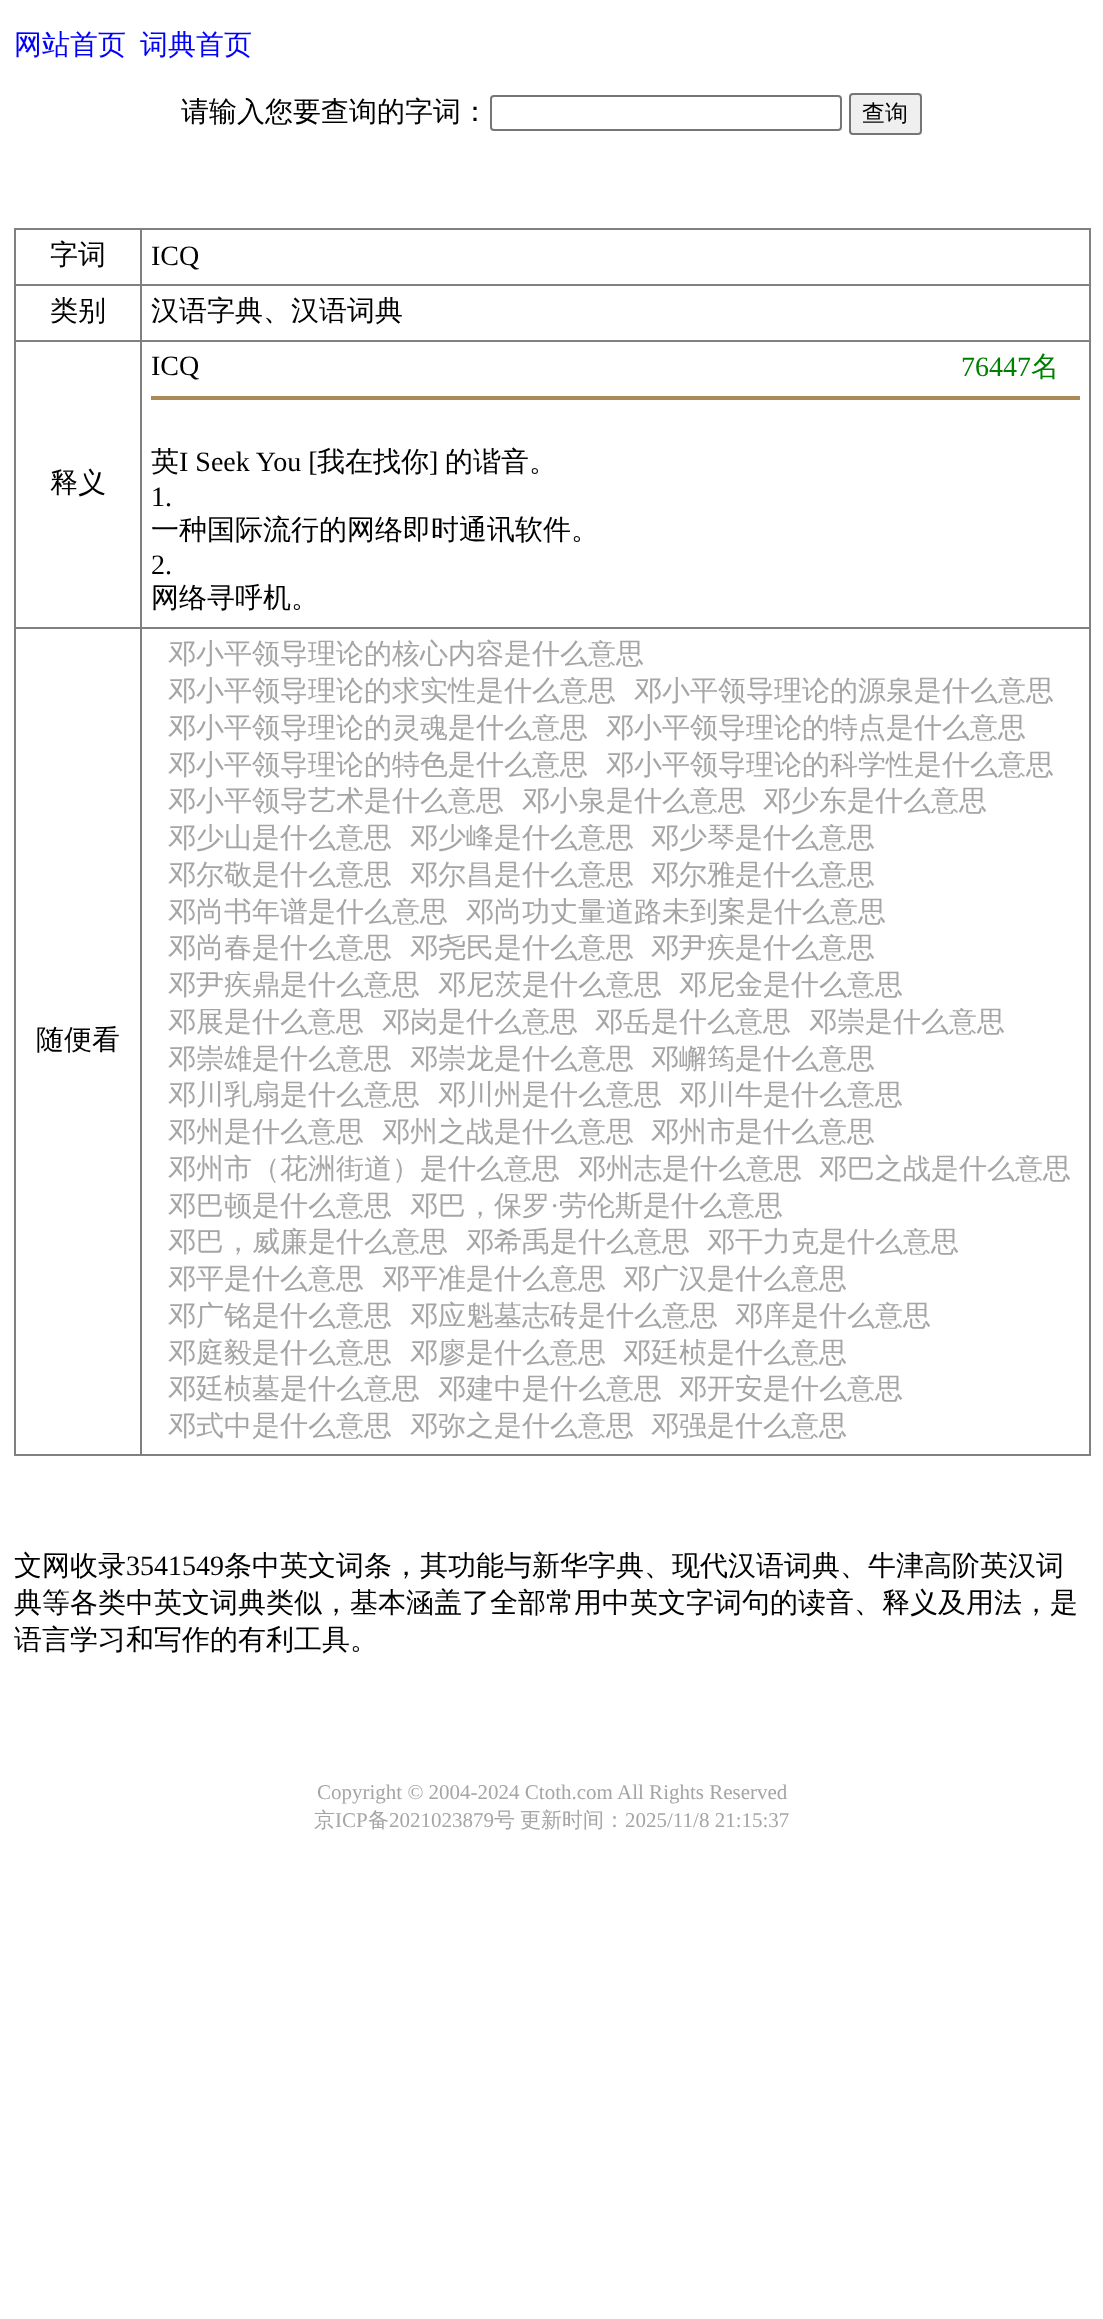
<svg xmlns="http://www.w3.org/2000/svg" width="1103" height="2319">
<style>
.a{font:500 28px WenQuanYi Zen Hei;fill:#00f}
.b{font:500 28px WenQuanYi Zen Hei;fill:#000}
.c{font:500 23px WenQuanYi Zen Hei;fill:#000}
.d{font:28px Liberation Serif;fill:#000}
.e{font:28px Liberation Serif;fill:#008000}
.f{font:500 28px WenQuanYi Zen Hei;fill:#008000}
.g{font:500 28px WenQuanYi Zen Hei;fill:#a5a5a5}
.h{font:28px Liberation Serif;fill:#a5a5a5}
.i{font:21px Liberation Serif;fill:#a5a5a5}
.j{font:500 21px WenQuanYi Zen Hei;fill:#a5a5a5}
</style>
<rect width="100%" height="100%" fill="#fff"/>
<rect fill="none" stroke="#767676" stroke-width="2" x="491" y="96" width="350" height="34" rx="3"/>
<rect fill="#efefef" stroke="#767676" stroke-width="2" x="850" y="94" width="71" height="40" rx="3"/>
<path fill="#808080" d="M14 228h1076v2H14z"/>
<path fill="#808080" d="M1089 228h2v1228H1089z"/>
<path fill="#808080" d="M14 1454h1076v2H14z"/>
<path fill="#808080" d="M14 228h2v1228H14z"/>
<path fill="#808080" d="M140 284h950v2H140z"/>
<path fill="#808080" d="M140 340h950v2H140z"/>
<path fill="#808080" d="M140 627h950v2H140z"/>
<path fill="#808080" d="M140 627h2v829H140z"/>
<path fill="#808080" d="M14 627h128v2H14z"/>
<path fill="#808080" d="M140 340h2v288H140z"/>
<path fill="#808080" d="M14 340h128v2H14z"/>
<path fill="#808080" d="M140 284h2v57H140z"/>
<path fill="#808080" d="M14 284h128v2H14z"/>
<path fill="#808080" d="M140 228h2v57H140z"/>
<path fill="#aa8a57" d="M151 396h929v4H151z"/>
<text class="a" x="14" y="54">网站首页</text>
<text class="a" x="140" y="54">词典首页</text>
<text class="b" x="181" y="121">请输入您要查询的字词：</text>
<text class="c" x="862" y="121">查询</text>
<text class="b" x="50" y="264">字词</text>
<text class="d" x="151" y="265">ICQ</text>
<text class="b" x="50" y="320">类别</text>
<text class="b" x="151" y="320">汉语字典、汉语词典</text>
<text class="b" x="50" y="492">释义</text>
<text class="e" x="961" y="376">76447</text>
<text class="f" x="1031" y="376">名</text>
<text class="b" x="151" y="471">英</text>
<text class="d" x="179" y="471">I Seek You [</text>
<text class="b" x="317" y="471">我在找你</text>
<text class="d" x="429" y="471">]</text>
<text class="b" x="445" y="471">的谐音。</text>
<text class="d" x="151" y="506">1.</text>
<text class="b" x="151" y="539">一种国际流行的网络即时通讯软件。</text>
<text class="d" x="151" y="574">2.</text>
<text class="b" x="151" y="607">网络寻呼机。</text>
<text class="d" x="151" y="375">ICQ</text>
<text class="b" x="36" y="1049">随便看</text>
<text class="g" x="168" y="663">邓小平领导理论的核心内容是什么意思</text>
<text class="g" x="168" y="700">邓小平领导理论的求实性是什么意思</text>
<text class="g" x="634" y="700">邓小平领导理论的源泉是什么意思</text>
<text class="g" x="168" y="737">邓小平领导理论的灵魂是什么意思</text>
<text class="g" x="606" y="737">邓小平领导理论的特点是什么意思</text>
<text class="g" x="168" y="774">邓小平领导理论的特色是什么意思</text>
<text class="g" x="606" y="774">邓小平领导理论的科学性是什么意思</text>
<text class="g" x="168" y="810">邓小平领导艺术是什么意思</text>
<text class="g" x="522" y="810">邓小泉是什么意思</text>
<text class="g" x="763" y="810">邓少东是什么意思</text>
<text class="g" x="168" y="847">邓少山是什么意思</text>
<text class="g" x="410" y="847">邓少峰是什么意思</text>
<text class="g" x="651" y="847">邓少琴是什么意思</text>
<text class="g" x="168" y="884">邓尔敬是什么意思</text>
<text class="g" x="410" y="884">邓尔昌是什么意思</text>
<text class="g" x="651" y="884">邓尔雅是什么意思</text>
<text class="g" x="168" y="921">邓尚书年谱是什么意思</text>
<text class="g" x="466" y="921">邓尚功丈量道路未到案是什么意思</text>
<text class="g" x="168" y="957">邓尚春是什么意思</text>
<text class="g" x="410" y="957">邓尧民是什么意思</text>
<text class="g" x="651" y="957">邓尹疾是什么意思</text>
<text class="g" x="168" y="994">邓尹疾鼎是什么意思</text>
<text class="g" x="438" y="994">邓尼茨是什么意思</text>
<text class="g" x="679" y="994">邓尼金是什么意思</text>
<text class="g" x="168" y="1031">邓展是什么意思</text>
<text class="g" x="382" y="1031">邓岗是什么意思</text>
<text class="g" x="595" y="1031">邓岳是什么意思</text>
<text class="g" x="809" y="1031">邓崇是什么意思</text>
<text class="g" x="168" y="1068">邓崇雄是什么意思</text>
<text class="g" x="410" y="1068">邓崇龙是什么意思</text>
<text class="g" x="651" y="1068">邓嶰筠是什么意思</text>
<text class="g" x="168" y="1104">邓川乳扇是什么意思</text>
<text class="g" x="438" y="1104">邓川州是什么意思</text>
<text class="g" x="679" y="1104">邓川牛是什么意思</text>
<text class="g" x="168" y="1141">邓州是什么意思</text>
<text class="g" x="382" y="1141">邓州之战是什么意思</text>
<text class="g" x="651" y="1141">邓州市是什么意思</text>
<text class="g" x="168" y="1178">邓州市（花洲街道）是什么意思</text>
<text class="g" x="578" y="1178">邓州志是什么意思</text>
<text class="g" x="819" y="1178">邓巴之战是什么意思</text>
<text class="g" x="168" y="1215">邓巴顿是什么意思</text>
<text class="g" x="410" y="1215">邓巴，保罗</text>
<text class="h" x="550" y="1215">·</text>
<text class="g" x="559" y="1215">劳伦斯是什么意思</text>
<text class="g" x="168" y="1251">邓巴，威廉是什么意思</text>
<text class="g" x="466" y="1251">邓希禹是什么意思</text>
<text class="g" x="707" y="1251">邓干力克是什么意思</text>
<text class="g" x="168" y="1288">邓平是什么意思</text>
<text class="g" x="382" y="1288">邓平准是什么意思</text>
<text class="g" x="623" y="1288">邓广汉是什么意思</text>
<text class="g" x="168" y="1325">邓广铭是什么意思</text>
<text class="g" x="410" y="1325">邓应魁墓志砖是什么意思</text>
<text class="g" x="735" y="1325">邓庠是什么意思</text>
<text class="g" x="168" y="1362">邓庭毅是什么意思</text>
<text class="g" x="410" y="1362">邓廖是什么意思</text>
<text class="g" x="623" y="1362">邓廷桢是什么意思</text>
<text class="g" x="168" y="1398">邓廷桢墓是什么意思</text>
<text class="g" x="438" y="1398">邓建中是什么意思</text>
<text class="g" x="679" y="1398">邓开安是什么意思</text>
<text class="g" x="168" y="1435">邓式中是什么意思</text>
<text class="g" x="410" y="1435">邓弥之是什么意思</text>
<text class="g" x="651" y="1435">邓强是什么意思</text>
<text class="b" x="14" y="1575">文网收录</text>
<text class="d" x="126" y="1575">3541549</text>
<text class="b" x="224" y="1575">条中英文词条，其功能与新华字典、现代汉语词典、牛津高阶英汉词</text>
<text class="b" x="14" y="1612">典等各类中英文词典类似，基本涵盖了全部常用中英文字词句的读音、释义及用法，是</text>
<text class="b" x="14" y="1649">语言学习和写作的有利工具。</text>
<text class="i" x="317" y="1799">Copyright © 2004-2024 Ctoth.com All Rights Reserved</text>
<text class="j" x="314" y="1827">京</text>
<text class="i" x="335" y="1827">ICP</text>
<text class="j" x="368" y="1827">备</text>
<text class="i" x="389" y="1827">2021023879</text>
<text class="j" x="494" y="1827">号</text>
<text class="j" x="520" y="1827">更新时间：</text>
<text class="i" x="625" y="1827">2025/11/8 21:15:37</text>
</svg>
